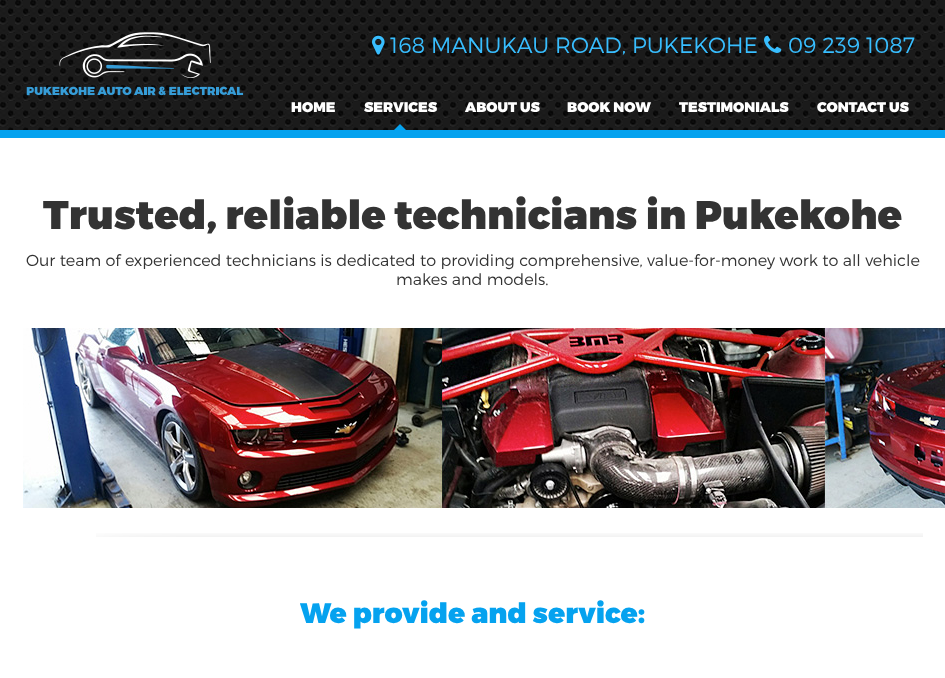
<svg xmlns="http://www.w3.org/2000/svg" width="945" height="678">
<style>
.a{font:300 22px Montserrat;fill:#38beff}
.b{font:900 14px Montserrat;fill:#fff}
.c{font:900 40px Montserrat;fill:#333}
.d{font:300 16px Montserrat;fill:#333}
.e{font:900 28px Montserrat;fill:#05a2ef}
</style>
<rect width="100%" height="100%" fill="#fff"/>
<image href="1.png" x="0" y="0" width="945" height="130"/>
<path fill="#05a2ef" d="M0 130h945v8H0z"/>
<image href="2.png" x="26" y="32" width="218" height="64"/>
<image href="3.png" x="372" y="35" width="13" height="20"/>
<image href="4.png" x="764" y="35" width="18" height="18"/>
<image href="5.png" x="394" y="124" width="12" height="6"/>
<image href="6.png" x="23" y="328" width="922" height="180"/>
<image href="7.png" x="96" y="533" width="827" height="4"/>
<text class="a" x="390" y="53">168 MANUKAU ROAD, PUKEKOHE</text>
<text class="a" x="788" y="53">09 239 1087</text>
<text class="b" x="291" y="112">HOME</text>
<text class="b" x="364" y="112">SERVICES</text>
<text class="b" x="465" y="112">ABOUT US</text>
<text class="b" x="567" y="112">BOOK NOW</text>
<text class="b" x="679" y="112">TESTIMONIALS</text>
<text class="b" x="817" y="112">CONTACT US</text>
<text class="c" x="43" y="229">Trusted, reliable technicians in Pukekohe</text>
<text class="d" x="26" y="266">Our team of experienced technicians is dedicated to providing comprehensive, value-for-money work to all vehicle</text>
<text class="d" x="396" y="285">makes and models.</text>
<text class="e" x="300" y="623">We provide and service:</text>
</svg>
